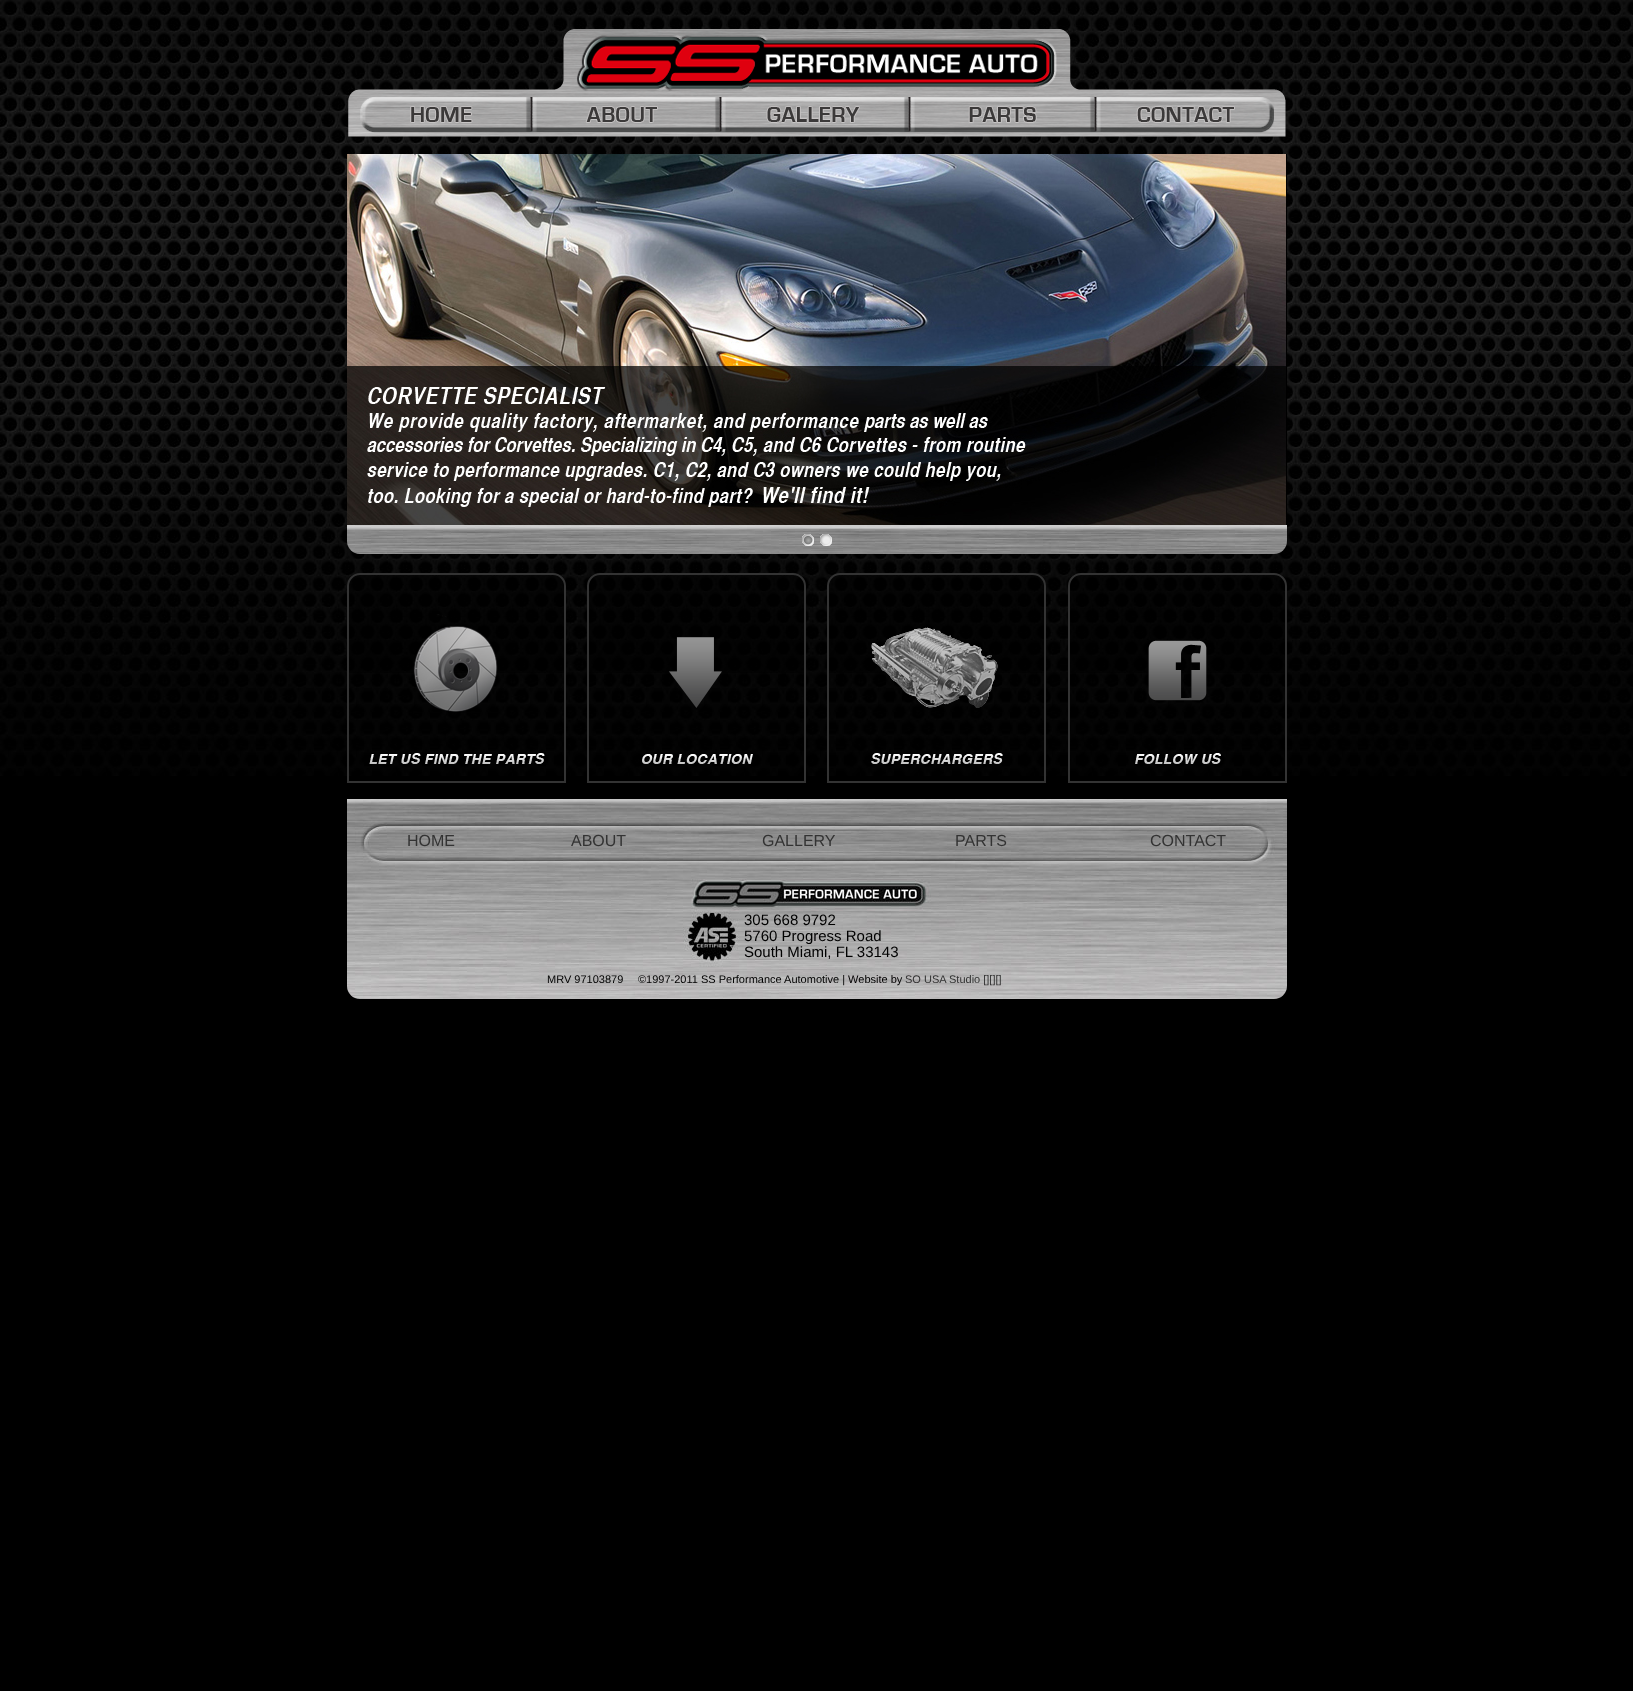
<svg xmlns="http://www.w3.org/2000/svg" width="1633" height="1691">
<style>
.a{font:16px Liberation Sans;fill:#333}
.b{font:15px Liberation Sans;fill:#000}
.c{font:11px Liberation Sans;fill:#000}
.d{font:11px Liberation Sans;fill:#333}
</style>
<rect width="100%" height="100%" fill="#000"/>
<image href="1.png" x="0" y="0" width="1633" height="20"/>
<image href="2.png" x="0" y="20" width="1633" height="756"/>
<image href="3.png" x="348" y="29" width="938" height="108"/>
<image href="4.png" x="410" y="106" width="63" height="17"/>
<image href="5.png" x="585" y="106" width="73" height="17"/>
<image href="6.png" x="766" y="106" width="94" height="17"/>
<image href="7.png" x="968" y="106" width="69" height="17"/>
<image href="8.png" x="1136" y="106" width="99" height="17"/>
<image href="9.png" x="347" y="154" width="940" height="400"/>
<image href="10.png" x="347" y="154" width="939" height="371"/>
<image href="11.png" x="802" y="534" width="12" height="12"/>
<image href="12.png" x="820" y="534" width="12" height="12"/>
<image href="13.png" x="347" y="575" width="219" height="98"/>
<path fill="none" stroke="#333" stroke-width="2" d="M360 574h193c6.5 0 12 5.5 12 12v196h-217v-196c0-6.5 5.5-12 12-12z"/>
<image href="14.png" x="369" y="614" width="176" height="150"/>
<image href="15.png" x="587" y="575" width="219" height="98"/>
<path fill="none" stroke="#333" stroke-width="2" d="M600 574h193c6.5 0 12 5.5 12 12v196h-217v-196c0-6.5 5.5-12 12-12z"/>
<image href="16.png" x="642" y="637" width="111" height="127"/>
<image href="17.png" x="827" y="575" width="219" height="98"/>
<path fill="none" stroke="#333" stroke-width="2" d="M840 574h193c6.5 0 12 5.5 12 12v196h-217v-196c0-6.5 5.5-12 12-12z"/>
<image href="18.png" x="871" y="627" width="132" height="137"/>
<image href="19.png" x="1068" y="575" width="219" height="98"/>
<path fill="none" stroke="#333" stroke-width="2" d="M1081 574h193c6.5 0 12 5.5 12 12v196h-217v-196c0-6.5 5.5-12 12-12z"/>
<image href="20.png" x="1135" y="640" width="86" height="124"/>
<image href="21.png" x="347" y="799" width="940" height="200"/>
<text class="a" x="407" y="846">HOME</text>
<text class="a" x="571" y="846">ABOUT</text>
<text class="a" x="762" y="846">GALLERY</text>
<text class="a" x="955" y="846">PARTS</text>
<text class="a" x="1150" y="846">CONTACT</text>
<text class="b" x="744" y="925">305 668 9792</text>
<text class="b" x="744" y="941">5760 Progress Road</text>
<text class="b" x="744" y="957">South Miami, FL 33143</text>
<text class="c" x="547" y="983">MRV 97103879</text>
<text class="c" x="638" y="983">©1997-2011 SS Performance Automotive | Website by</text>
<text class="d" x="905" y="983">SO USA Studio [][][]</text>
</svg>
